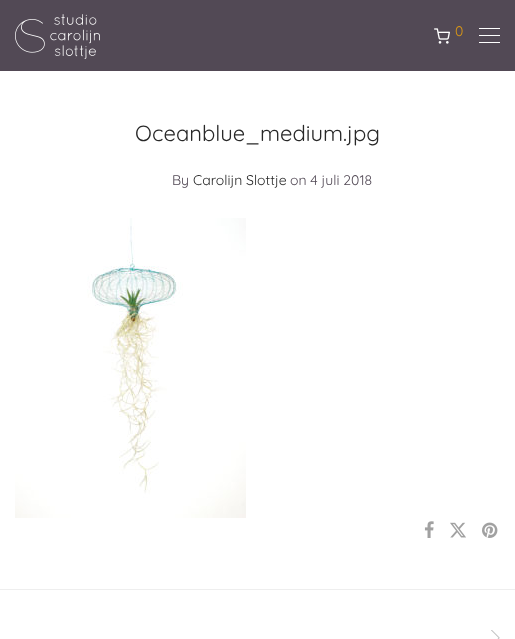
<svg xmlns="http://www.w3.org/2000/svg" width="515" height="639">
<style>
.a{font:14px Quicksand;fill:#dc9814}
.b{font:22px Quicksand;fill:#282828}
.c{font:14px Quicksand;fill:#524955}
.d{font:14px Quicksand;fill:#282828}
</style>
<rect width="100%" height="100%" fill="#fff"/>
<path fill="#524955" d="M0 0h515v71H0z"/>
<image href="1.png" x="15" y="14" width="85" height="45"/>
<image href="2.png" x="434" y="28" width="16" height="16"/>
<path fill="#fff" d="M479 28h21v1H479z"/>
<path fill="#fff" d="M479 35h21v1H479z"/>
<path fill="#fff" d="M479 42h21v1H479z"/>
<image href="3.png" x="15" y="218" width="231" height="300"/>
<image href="4.png" x="424" y="521" width="10" height="17"/>
<image href="5.png" x="450" y="522" width="16" height="16"/>
<image href="6.png" x="482" y="522" width="16" height="16"/>
<path fill="#eee" d="M0 589h515v1H0z"/>
<image href="7.png" x="491" y="630" width="9" height="9"/>
<text class="a" x="455" y="36">0</text>
<text class="b" x="135" y="141">Oceanblue_medium.jpg</text>
<text class="c" x="172" y="185">By</text>
<text class="d" x="193" y="185">Carolijn Slottje</text>
<text class="c" x="290" y="185">on 4 juli 2018</text>
</svg>
